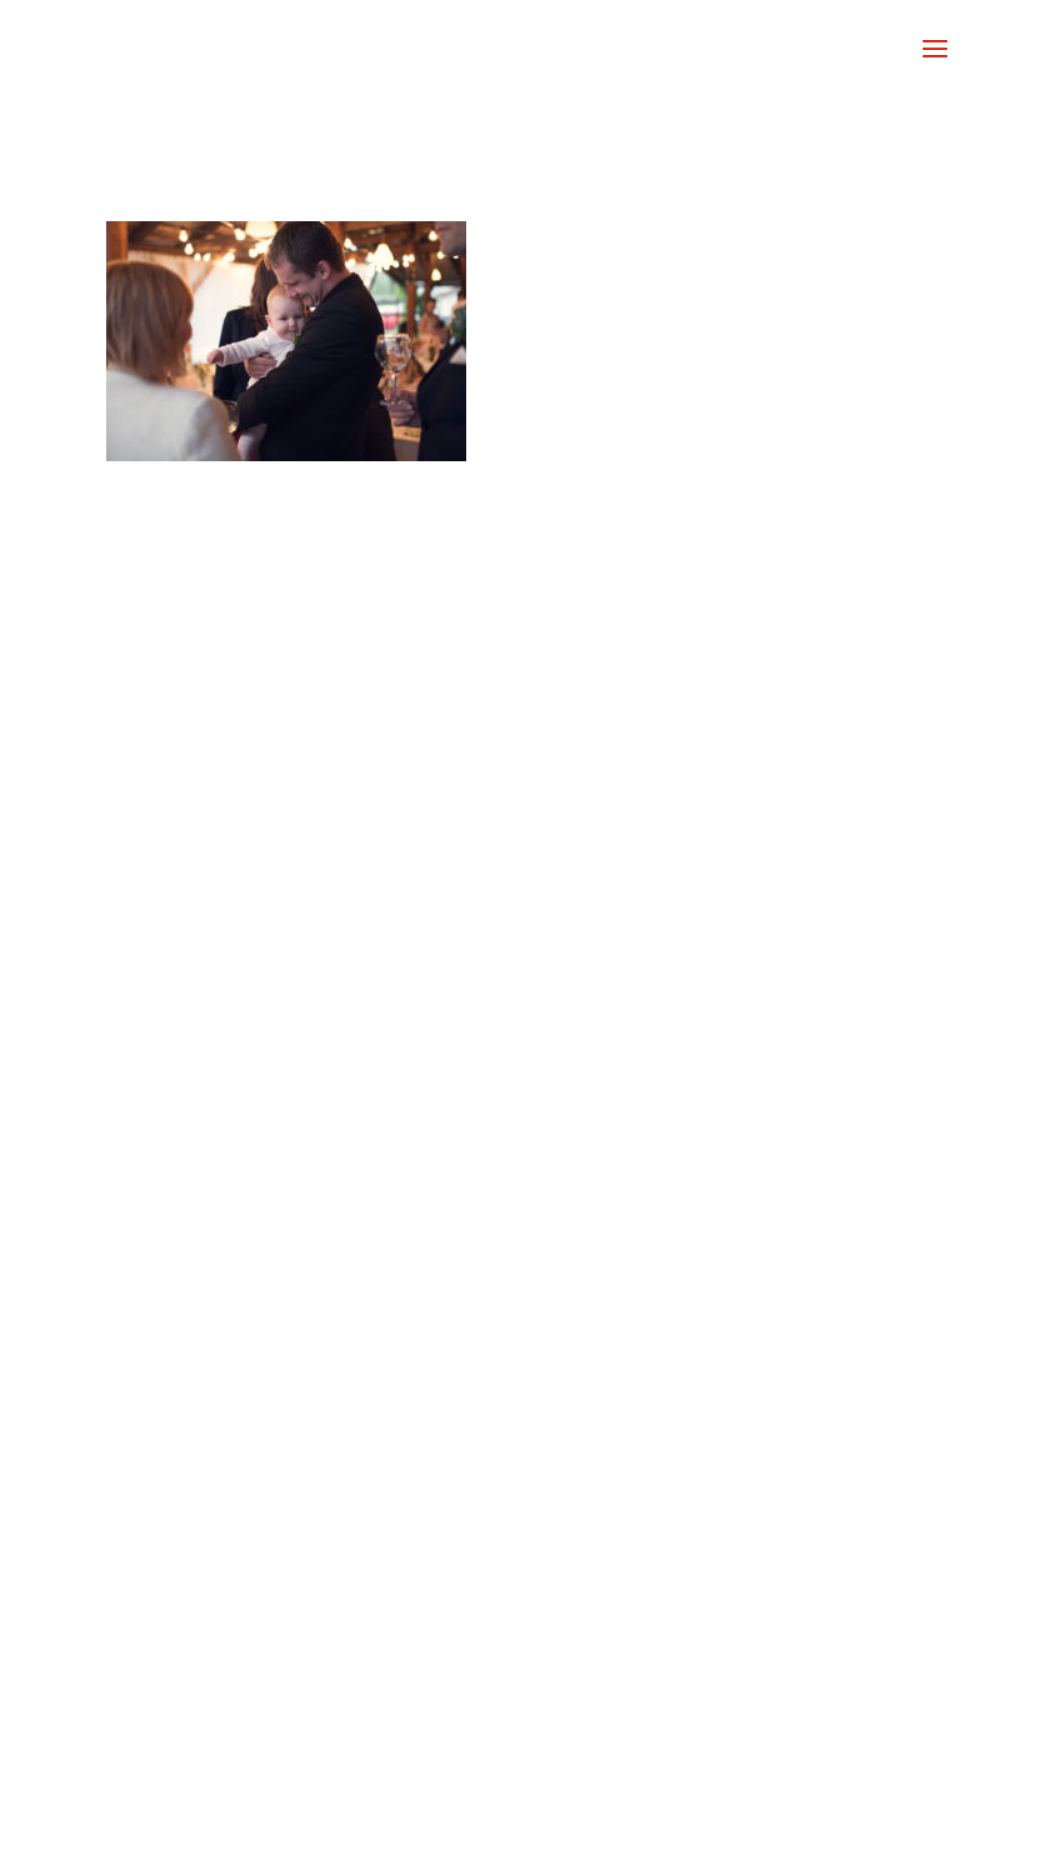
<svg xmlns="http://www.w3.org/2000/svg" width="1061" height="1850">
<rect width="100%" height="100%" fill="#fff"/>
<image href="1.png" x="922" y="40" width="26" height="18"/>
<image href="2.png" x="106" y="221" width="361" height="241"/>
</svg>
